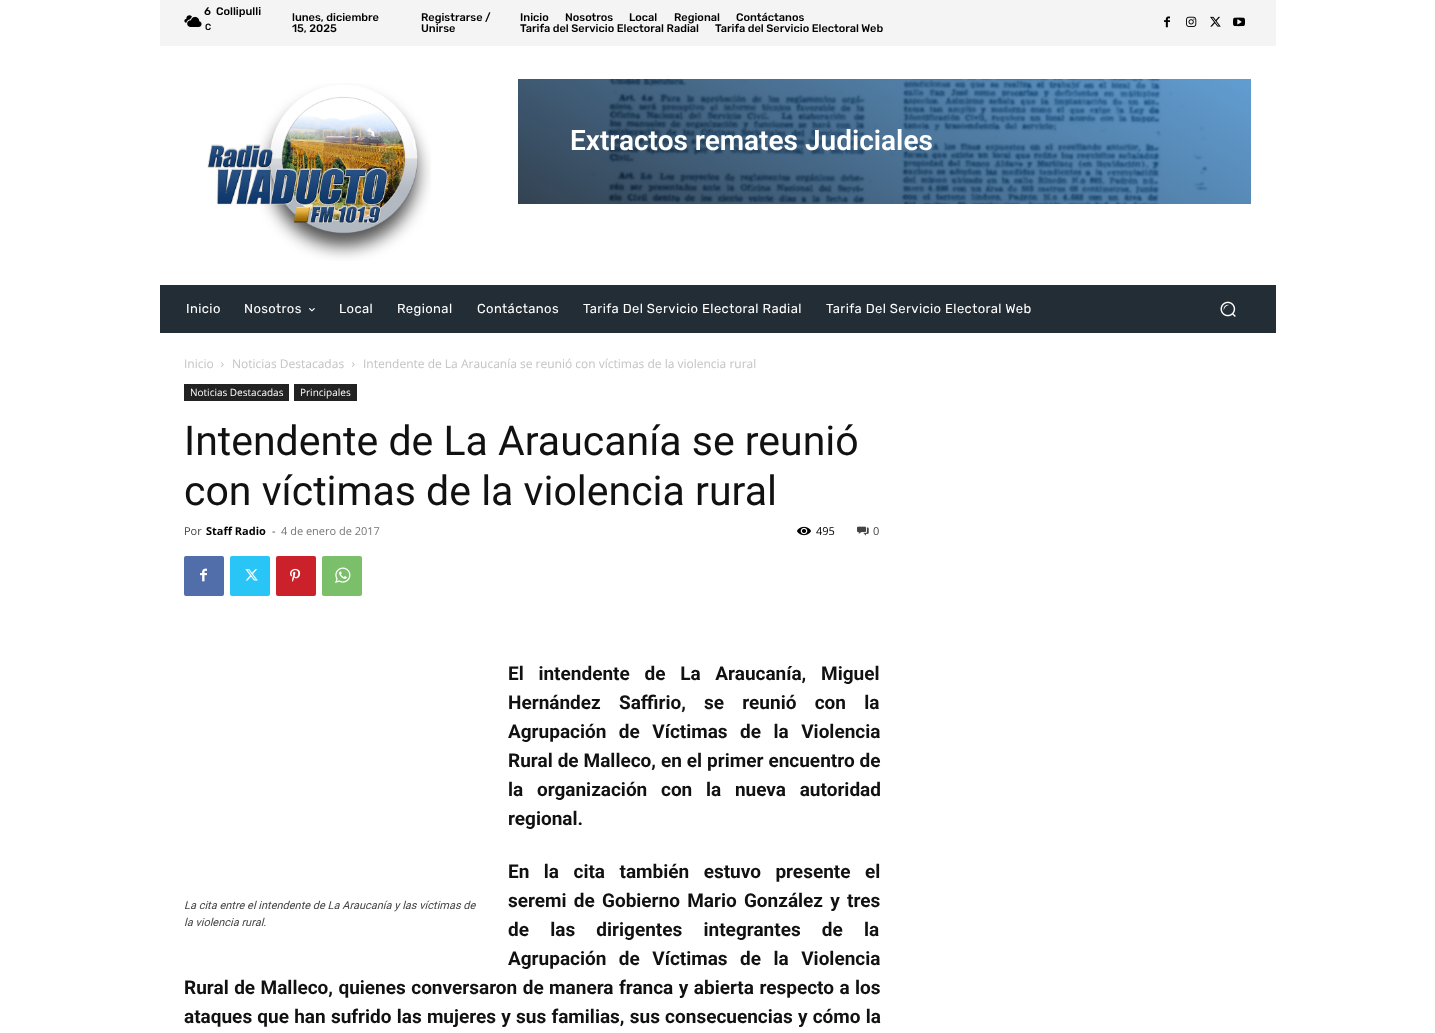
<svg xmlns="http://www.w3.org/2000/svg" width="1435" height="1033">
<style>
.a{font:500 11px Rubik;fill:#000}
.b{font:500 9px Rubik;fill:#000}
.c{font:600 28px Roboto;fill:#fff}
.d{font:13px Rubik;letter-spacing:0.4px;fill:#fff}
.e{font:12px Open Sans;fill:#c3c3c3}
.f{font:10px Open Sans;fill:#fff}
.g{font:41px Roboto;fill:#111}
.h{font:11px Open Sans;fill:#444}
.i{font:bold 11px Open Sans;fill:#000}
.j{font:11px Open Sans;fill:#767676}
.k{font:11px Open Sans;fill:#000}
.l{font:bold 19px Roboto;fill:#111}
.m{font:italic 11px Roboto;fill:#444}
</style>
<defs>
<linearGradient id="g1" gradientUnits="userSpaceOnUse" x1="766" y1="347" x2="1003" y2="-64"><stop offset="0" stop-color="#001326" stop-opacity="0.8"/><stop offset="1" stop-color="#1e73be" stop-opacity="0.7"/></linearGradient>
</defs>
<rect width="100%" height="100%" fill="#fff"/>
<path fill="#f4f4f4" d="M160 0h1116v46H160z"/>
<image href="1.png" x="184" y="15" width="18" height="12"/>
<image href="2.png" x="1164" y="16" width="6" height="12"/>
<image href="3.png" x="1186" y="16" width="11" height="11"/>
<image href="4.png" x="1210" y="16" width="11" height="11"/>
<image href="5.png" x="1233" y="17" width="12" height="10"/>
<image href="6.png" x="207" y="83" width="224" height="178"/>
<image href="7.png" x="584" y="79" width="624" height="125"/>
<path fill="url(#g1)" d="M518 79h733v125H518z"/>
<path fill="#232d35" d="M160 285h1116v48H160z"/>
<image href="8.png" x="309" y="308" width="6" height="4"/>
<image href="9.png" x="1220" y="301" width="16" height="16"/>
<image href="10.png" x="221" y="362" width="3" height="5"/>
<image href="10.png" x="352" y="362" width="3" height="5"/>
<path fill="#222" d="M184 384h105v17H184z"/>
<path fill="#222" d="M294 384h63v17H294z"/>
<image href="11.png" x="797" y="526" width="14" height="10"/>
<image href="12.png" x="857" y="526" width="12" height="10"/>
<rect fill="#516eab" x="184" y="556" width="40" height="40" rx="2"/>
<image href="13.png" x="200" y="568" width="7" height="14"/>
<rect fill="#29c5f6" x="230" y="556" width="40" height="40" rx="2"/>
<image href="14.png" x="245" y="569" width="13" height="12"/>
<rect fill="#ca212a" x="276" y="556" width="40" height="40" rx="2"/>
<image href="15.png" x="290" y="568" width="11" height="14"/>
<rect fill="#7bbf6a" x="322" y="556" width="40" height="40" rx="2"/>
<image href="16.png" x="335" y="567" width="16" height="16"/>
<text class="a" x="204" y="15">6</text>
<text class="b" x="205" y="30">C</text>
<text class="a" x="216" y="15">Collipulli</text>
<text class="a" x="292" y="21">lunes, diciembre</text>
<text class="a" x="292" y="32">15, 2025</text>
<text class="a" x="421" y="21">Registrarse /</text>
<text class="a" x="421" y="32">Unirse</text>
<text class="a" x="520" y="21">Inicio</text>
<text class="a" x="565" y="21">Nosotros</text>
<text class="a" x="629" y="21">Local</text>
<text class="a" x="674" y="21">Regional</text>
<text class="a" x="736" y="21">Contáctanos</text>
<text class="a" x="520" y="32">Tarifa del Servicio Electoral Radial</text>
<text class="a" x="715" y="32">Tarifa del Servicio Electoral Web</text>
<text class="c" x="570" y="150">Extractos remates Judiciales</text>
<text class="d" x="186" y="313">Inicio</text>
<text class="d" x="244" y="313">Nosotros</text>
<text class="d" x="339" y="313">Local</text>
<text class="d" x="397" y="313">Regional</text>
<text class="d" x="477" y="313">Contáctanos</text>
<text class="d" x="583" y="313">Tarifa Del Servicio Electoral Radial</text>
<text class="d" x="826" y="313">Tarifa Del Servicio Electoral Web</text>
<text class="e" x="184" y="368">Inicio</text>
<text class="e" x="232" y="368">Noticias Destacadas</text>
<text class="e" x="363" y="368">Intendente de La Araucanía se reunió con víctimas de la violencia rural</text>
<text class="f" x="190" y="396">Noticias Destacadas</text>
<text class="f" x="300" y="396">Principales</text>
<text class="g" x="184" y="455">Intendente de La Araucanía se reunió</text>
<text class="g" x="184" y="505">con víctimas de la violencia rural</text>
<text class="h" x="184" y="535">Por</text>
<text class="i" x="206" y="535">Staff Radio</text>
<text class="h" x="272" y="535">-</text>
<text class="j" x="281" y="535">4 de enero de 2017</text>
<text class="k" x="816" y="535">495</text>
<text class="h" x="873" y="535">0</text>
<text class="l" x="508" y="680" word-spacing="10">El intendente de La Araucanía, Miguel</text>
<text class="l" x="508" y="709" word-spacing="13.5">Hernández Saffirio, se reunió con la</text>
<text class="l" x="508" y="738" word-spacing="7.75">Agrupación de Víctimas de la Violencia</text>
<text class="l" x="508" y="767" word-spacing="0.25">Rural de Malleco, en el primer encuentro de</text>
<text class="l" x="508" y="796" word-spacing="9">la organización con la nueva autoridad</text>
<text class="l" x="508" y="825">regional.</text>
<text class="l" x="508" y="878" word-spacing="9.75">En la cita también estuvo presente el</text>
<text class="l" x="508" y="907" word-spacing="2.5">seremi de Gobierno Mario González y tres</text>
<text class="l" x="508" y="936" word-spacing="16.5">de las dirigentes integrantes de la</text>
<text class="l" x="508" y="965" word-spacing="7.75">Agrupación de Víctimas de la Violencia</text>
<text class="l" x="184" y="994" word-spacing="0.75">Rural de Malleco, quienes conversaron de manera franca y abierta respecto a los</text>
<text class="l" x="184" y="1023" word-spacing="0.5">ataques que han sufrido las mujeres y sus familias, sus consecuencias y cómo la</text>
<text class="m" x="184" y="909">La cita entre el intendente de La Araucanía y las víctimas de</text>
<text class="m" x="184" y="926">la violencia rural.</text>
</svg>
